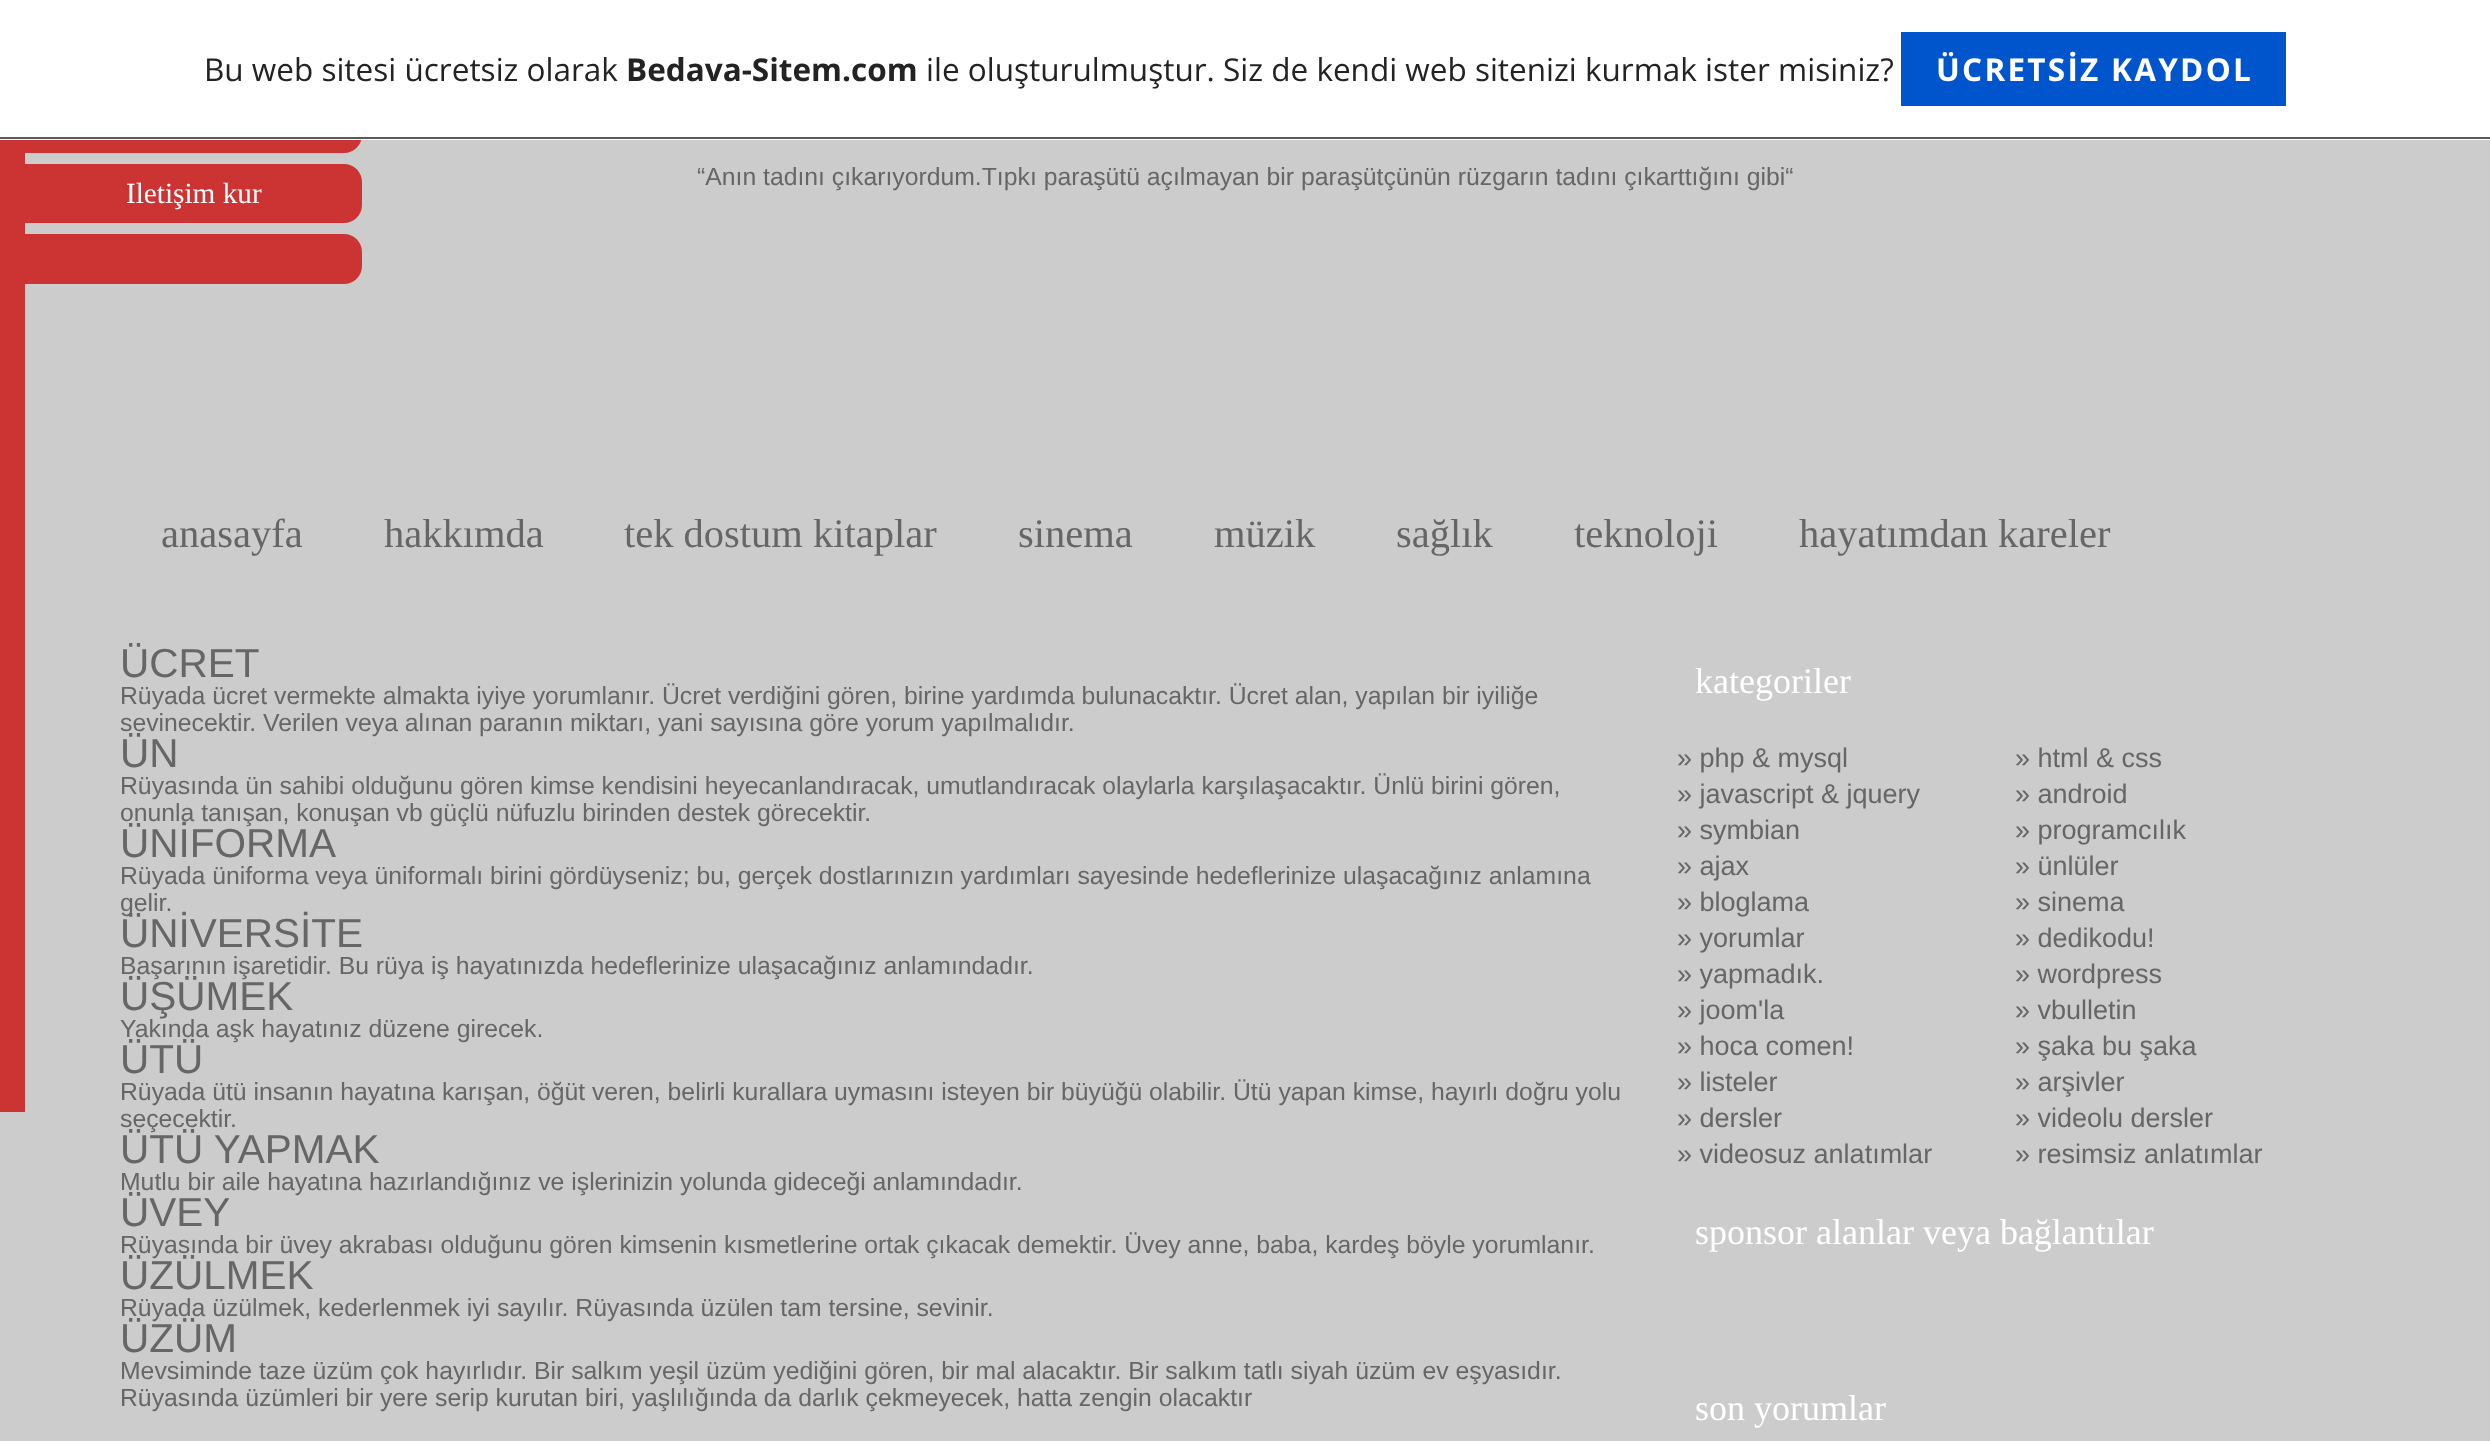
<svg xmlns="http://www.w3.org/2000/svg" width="2490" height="1441">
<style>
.a{font:31.5px Open Sans;fill:#232323}
.b{font:bold 31.5px Open Sans;fill:#232323}
.c{font:bold 31.5px Open Sans;letter-spacing:2.25px;fill:#fff}
.d{font:24.75px Liberation Sans;fill:#666}
.e{font:40.5px Liberation Serif;fill:#666}
.f{font:40.5px Liberation Sans;fill:#666}
.g{font:36px Liberation Serif;fill:#fff}
.h{font:27px Liberation Sans;fill:#666}
.i{font:29.25px Liberation Serif;fill:#fff}
</style>
<rect width="100%" height="100%" fill="#ccc"/>
<path fill="#c33" d="M25 95h319c10 0 18 8 18 18v22c0 10-8 18-18 18h-319z"/>
<path fill="#fff" d="M0 0h2490v140H0z"/>
<path fill="#5a5a5a" d="M0 137h2490v2H0z"/>
<path fill="#05c" d="M1901 32h385v74H1901z"/>
<path fill="#c33" d="M0 140h25v972H0z"/>
<path fill="#c33" d="M25 164h319c10 0 18 8 18 18v23c0 10-8 18-18 18h-319z"/>
<path fill="#c33" d="M25 234h319c10 0 18 8 18 18v14c0 10-8 18-18 18h-319z"/>
<text class="a" x="204" y="81">Bu web sitesi ücretsiz olarak</text>
<text class="b" x="626" y="81">Bedava-Sitem.com</text>
<text class="a" x="926" y="81">ile oluşturulmuştur. Siz de kendi web sitenizi kurmak ister misiniz?</text>
<text class="c" x="1936" y="81">ÜCRETSİZ KAYDOL</text>
<text class="d" x="697" y="185">“Anın tadını çıkarıyordum.Tıpkı paraşütü açılmayan bir paraşütçünün rüzgarın tadını çıkarttığını gibi“</text>
<text class="e" x="161" y="547">anasayfa</text>
<text class="e" x="384" y="547">hakkımda</text>
<text class="e" x="624" y="547">tek dostum kitaplar</text>
<text class="e" x="1018" y="547">sinema</text>
<text class="e" x="1214" y="547">müzik</text>
<text class="e" x="1396" y="547">sağlık</text>
<text class="e" x="1574" y="547">teknoloji</text>
<text class="e" x="1799" y="547">hayatımdan kareler</text>
<text class="f" x="120" y="677">ÜCRET</text>
<text class="d" x="120" y="704">Rüyada ücret vermekte almakta iyiye yorumlanır. Ücret verdiğini gören, birine yardımda bulunacaktır. Ücret alan, yapılan bir iyiliğe</text>
<text class="d" x="120" y="731">sevinecektir. Verilen veya alınan paranın miktarı, yani sayısına göre yorum yapılmalıdır.</text>
<text class="f" x="120" y="767">ÜN</text>
<text class="d" x="120" y="794">Rüyasında ün sahibi olduğunu gören kimse kendisini heyecanlandıracak, umutlandıracak olaylarla karşılaşacaktır. Ünlü birini gören,</text>
<text class="d" x="120" y="821">onunla tanışan, konuşan vb güçlü nüfuzlu birinden destek görecektir.</text>
<text class="f" x="120" y="857">ÜNİFORMA</text>
<text class="d" x="120" y="884">Rüyada üniforma veya üniformalı birini gördüyseniz; bu, gerçek dostlarınızın yardımları sayesinde hedeflerinize ulaşacağınız anlamına</text>
<text class="d" x="120" y="911">gelir.</text>
<text class="f" x="120" y="947">ÜNİVERSİTE</text>
<text class="d" x="120" y="974">Başarının işaretidir. Bu rüya iş hayatınızda hedeflerinize ulaşacağınız anlamındadır.</text>
<text class="f" x="120" y="1010">ÜŞÜMEK</text>
<text class="d" x="120" y="1037">Yakında aşk hayatınız düzene girecek.</text>
<text class="f" x="120" y="1073">ÜTÜ</text>
<text class="d" x="120" y="1100">Rüyada ütü insanın hayatına karışan, öğüt veren, belirli kurallara uymasını isteyen bir büyüğü olabilir. Ütü yapan kimse, hayırlı doğru yolu</text>
<text class="d" x="120" y="1127">seçecektir.</text>
<text class="f" x="120" y="1163">ÜTÜ YAPMAK</text>
<text class="d" x="120" y="1190">Mutlu bir aile hayatına hazırlandığınız ve işlerinizin yolunda gideceği anlamındadır.</text>
<text class="f" x="120" y="1226">ÜVEY</text>
<text class="d" x="120" y="1253">Rüyasında bir üvey akrabası olduğunu gören kimsenin kısmetlerine ortak çıkacak demektir. Üvey anne, baba, kardeş böyle yorumlanır.</text>
<text class="f" x="120" y="1289">ÜZÜLMEK</text>
<text class="d" x="120" y="1316">Rüyada üzülmek, kederlenmek iyi sayılır. Rüyasında üzülen tam tersine, sevinir.</text>
<text class="f" x="120" y="1352">ÜZÜM</text>
<text class="d" x="120" y="1379">Mevsiminde taze üzüm çok hayırlıdır. Bir salkım yeşil üzüm yediğini gören, bir mal alacaktır. Bir salkım tatlı siyah üzüm ev eşyasıdır.</text>
<text class="d" x="120" y="1406">Rüyasında üzümleri bir yere serip kurutan biri, yaşlılığında da darlık çekmeyecek, hatta zengin olacaktır</text>
<text class="g" x="1695" y="693">kategoriler</text>
<text class="h" x="1677" y="767">» php &amp; mysql</text>
<text class="h" x="2015" y="767">» html &amp; css</text>
<text class="h" x="1677" y="803">» javascript &amp; jquery</text>
<text class="h" x="2015" y="803">» android</text>
<text class="h" x="1677" y="839">» symbian</text>
<text class="h" x="2015" y="839">» programcılık</text>
<text class="h" x="1677" y="875">» ajax</text>
<text class="h" x="2015" y="875">» ünlüler</text>
<text class="h" x="1677" y="911">» bloglama</text>
<text class="h" x="2015" y="911">» sinema</text>
<text class="h" x="1677" y="947">» yorumlar</text>
<text class="h" x="2015" y="947">» dedikodu!</text>
<text class="h" x="1677" y="983">» yapmadık.</text>
<text class="h" x="2015" y="983">» wordpress</text>
<text class="h" x="1677" y="1019">» joom'la</text>
<text class="h" x="2015" y="1019">» vbulletin</text>
<text class="h" x="1677" y="1055">» hoca comen!</text>
<text class="h" x="2015" y="1055">» şaka bu şaka</text>
<text class="h" x="1677" y="1091">» listeler</text>
<text class="h" x="2015" y="1091">» arşivler</text>
<text class="h" x="1677" y="1127">» dersler</text>
<text class="h" x="2015" y="1127">» videolu dersler</text>
<text class="h" x="1677" y="1163">» videosuz anlatımlar</text>
<text class="h" x="2015" y="1163">» resimsiz anlatımlar</text>
<text class="g" x="1695" y="1244">sponsor alanlar veya bağlantılar</text>
<text class="g" x="1695" y="1420">son yorumlar</text>
<text class="i" x="126" y="203">Iletişim kur</text>
</svg>
